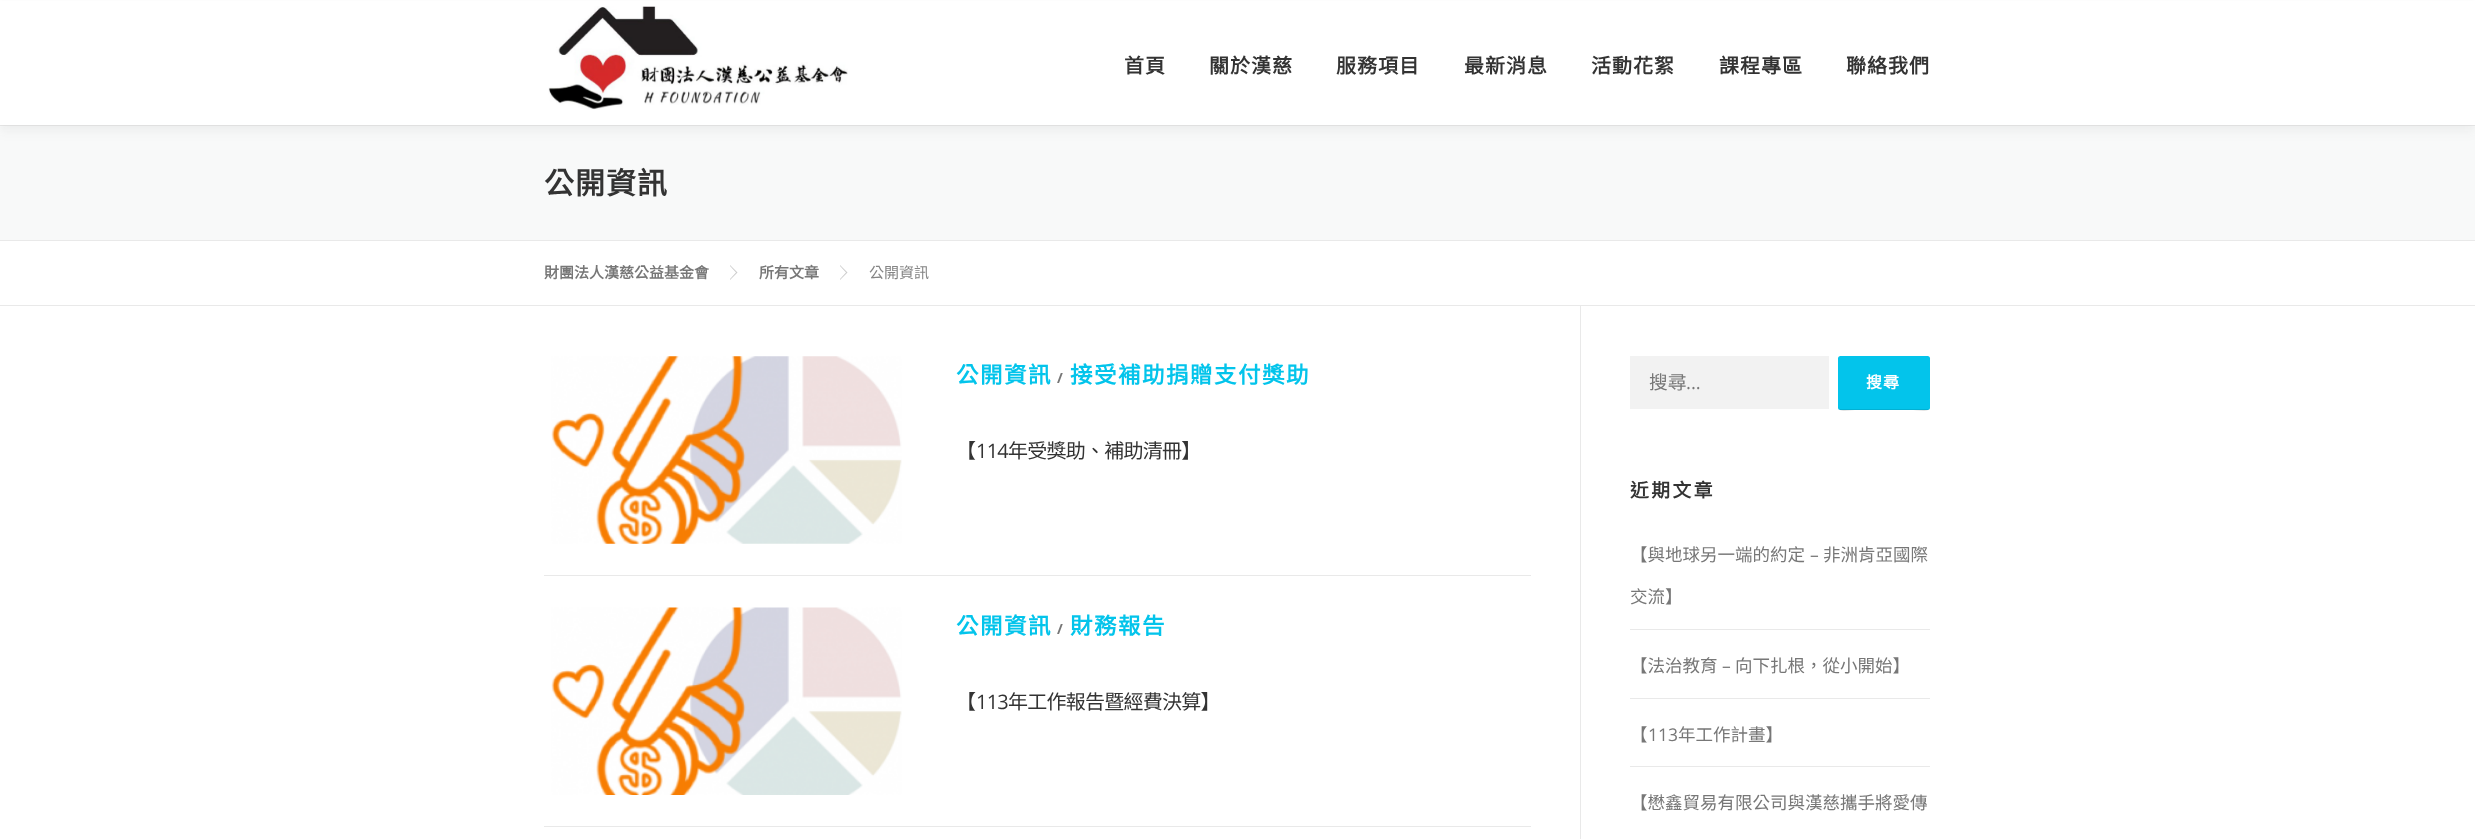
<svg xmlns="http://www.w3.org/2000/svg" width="2475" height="839">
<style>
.a{font:bold 20px Noto Sans CJK TC;letter-spacing:1px;fill:#333}
.b{font:bold 30px Noto Sans CJK TC;letter-spacing:1px;fill:#333}
.c{font:bold 15px Noto Sans CJK TC;fill:#777}
.d{font:15px Noto Sans CJK TC;fill:#858585}
.e{font:bold 22.5px Noto Sans CJK TC;letter-spacing:1.5px;fill:#03c4eb}
.f{font:bold 14px Open Sans;letter-spacing:1.5px;fill:#777}
.g{font:20px Noto Sans CJK TC;letter-spacing:-0.75px;fill:#333}
.h{font:20px Open Sans;letter-spacing:-0.75px;fill:#333}
.i{font:18.75px Noto Sans CJK TC;fill:#777}
.j{font:18.75px Open Sans;fill:#777}
.k{font:bold 16px Noto Sans CJK TC;letter-spacing:1px;fill:#fff}
.l{font:bold 18.75px Noto Sans CJK TC;letter-spacing:2.5px;fill:#333}
.m{font:17.5px Noto Sans CJK TC;fill:#777}
.n{font:17.5px Open Sans;fill:#777}
</style>
<rect width="100%" height="100%" fill="#fff"/>
<path fill="#f8f9f9" d="M0 126h2475v114H0z"/>
<path fill="#e9e9e9" d="M0 125h2475v1H0z"/>
<path fill="#3232320f" filter="blur(6px)" d="M0 6h2475v125H0z"/>
<path fill="#fff" d="M0 1h2475v124H0z"/>
<image href="1.png" x="548" y="6" width="300" height="104"/>
<path fill="#e9e9e9" d="M0 240h2475v1H0z"/>
<path fill="#e9e9e9" d="M0 305h2475v1H0z"/>
<path fill="#ccc" d="M730 280v-15l7.5 7.5z"/>
<path fill="#fff" d="M730 279v-13l6 6.5z"/>
<path fill="#ccc" d="M840 280v-15l7.5 7.5z"/>
<path fill="#fff" d="M840 279v-13l6 6.5z"/>
<path fill="#e9e9e9" d="M1580 306h1v533H1580z"/>
<image href="2.png" x="551" y="356" width="351" height="188"/>
<path fill="#e9e9e9" d="M544 575h987v1H544z"/>
<image href="3.png" x="551" y="607" width="351" height="188"/>
<path fill="#e9e9e9" d="M544 826h987v1H544z"/>
<path fill="#f2f2f2" d="M1630 356h199v53H1630z"/>
<rect fill="#03c4eb" x="1838" y="356" width="92" height="54" rx="2.5"/>
<path fill="#0000001a" d="M1838 406c0 8 12 4 17 4h58c5 0 17 4 17-4c0 2-1 3-2 3h-88c-1 0-2-1-2-3z"/>
<path fill="#e9e9e9" d="M1630 629h300v1H1630z"/>
<path fill="#e9e9e9" d="M1630 698h300v1H1630z"/>
<path fill="#e9e9e9" d="M1630 766h300v1H1630z"/>
<text class="a" x="1124" y="73">首頁</text>
<text class="a" x="1209" y="73">關於漢慈</text>
<text class="a" x="1336" y="73">服務項目</text>
<text class="a" x="1464" y="73">最新消息</text>
<text class="a" x="1591" y="73">活動花絮</text>
<text class="a" x="1719" y="73">課程專區</text>
<text class="a" x="1846" y="73">聯絡我們</text>
<text class="b" x="544" y="194">公開資訊</text>
<text class="c" x="544" y="278">財團法人漢慈公益基金會</text>
<text class="c" x="759" y="278">所有文章</text>
<text class="d" x="869" y="278">公開資訊</text>
<text class="e" x="956" y="383">公開資訊</text>
<text class="f" x="1057" y="383">/</text>
<text class="e" x="1070" y="383">接受補助捐贈支付獎助</text>
<text class="g" x="956" y="458">【</text>
<text class="h" x="976" y="458">114</text>
<text class="g" x="1008" y="458">年受獎助、補助清冊】</text>
<text class="e" x="956" y="634">公開資訊</text>
<text class="f" x="1057" y="634">/</text>
<text class="e" x="1070" y="634">財務報告</text>
<text class="g" x="956" y="709">【</text>
<text class="h" x="976" y="709">113</text>
<text class="g" x="1008" y="709">年工作報告暨經費決算】</text>
<text class="i" x="1649" y="389">搜尋</text>
<text class="j" x="1686" y="389">...</text>
<text class="k" x="1866" y="388">搜尋</text>
<text class="l" x="1630" y="497">近期文章</text>
<text class="m" x="1630" y="561">【與地球另一端的約定</text>
<text class="n" x="1810" y="561">–</text>
<text class="m" x="1823" y="561">非洲肯亞國際</text>
<text class="m" x="1630" y="603">交流】</text>
<text class="m" x="1630" y="672">【法治教育</text>
<text class="n" x="1722" y="672">–</text>
<text class="m" x="1735" y="672">向下扎根，從小開始】</text>
<text class="m" x="1630" y="741">【</text>
<text class="n" x="1648" y="741">113</text>
<text class="m" x="1678" y="741">年工作計畫】</text>
<text class="m" x="1630" y="809">【懋鑫貿易有限公司與漢慈攜手將愛傳</text>
</svg>
